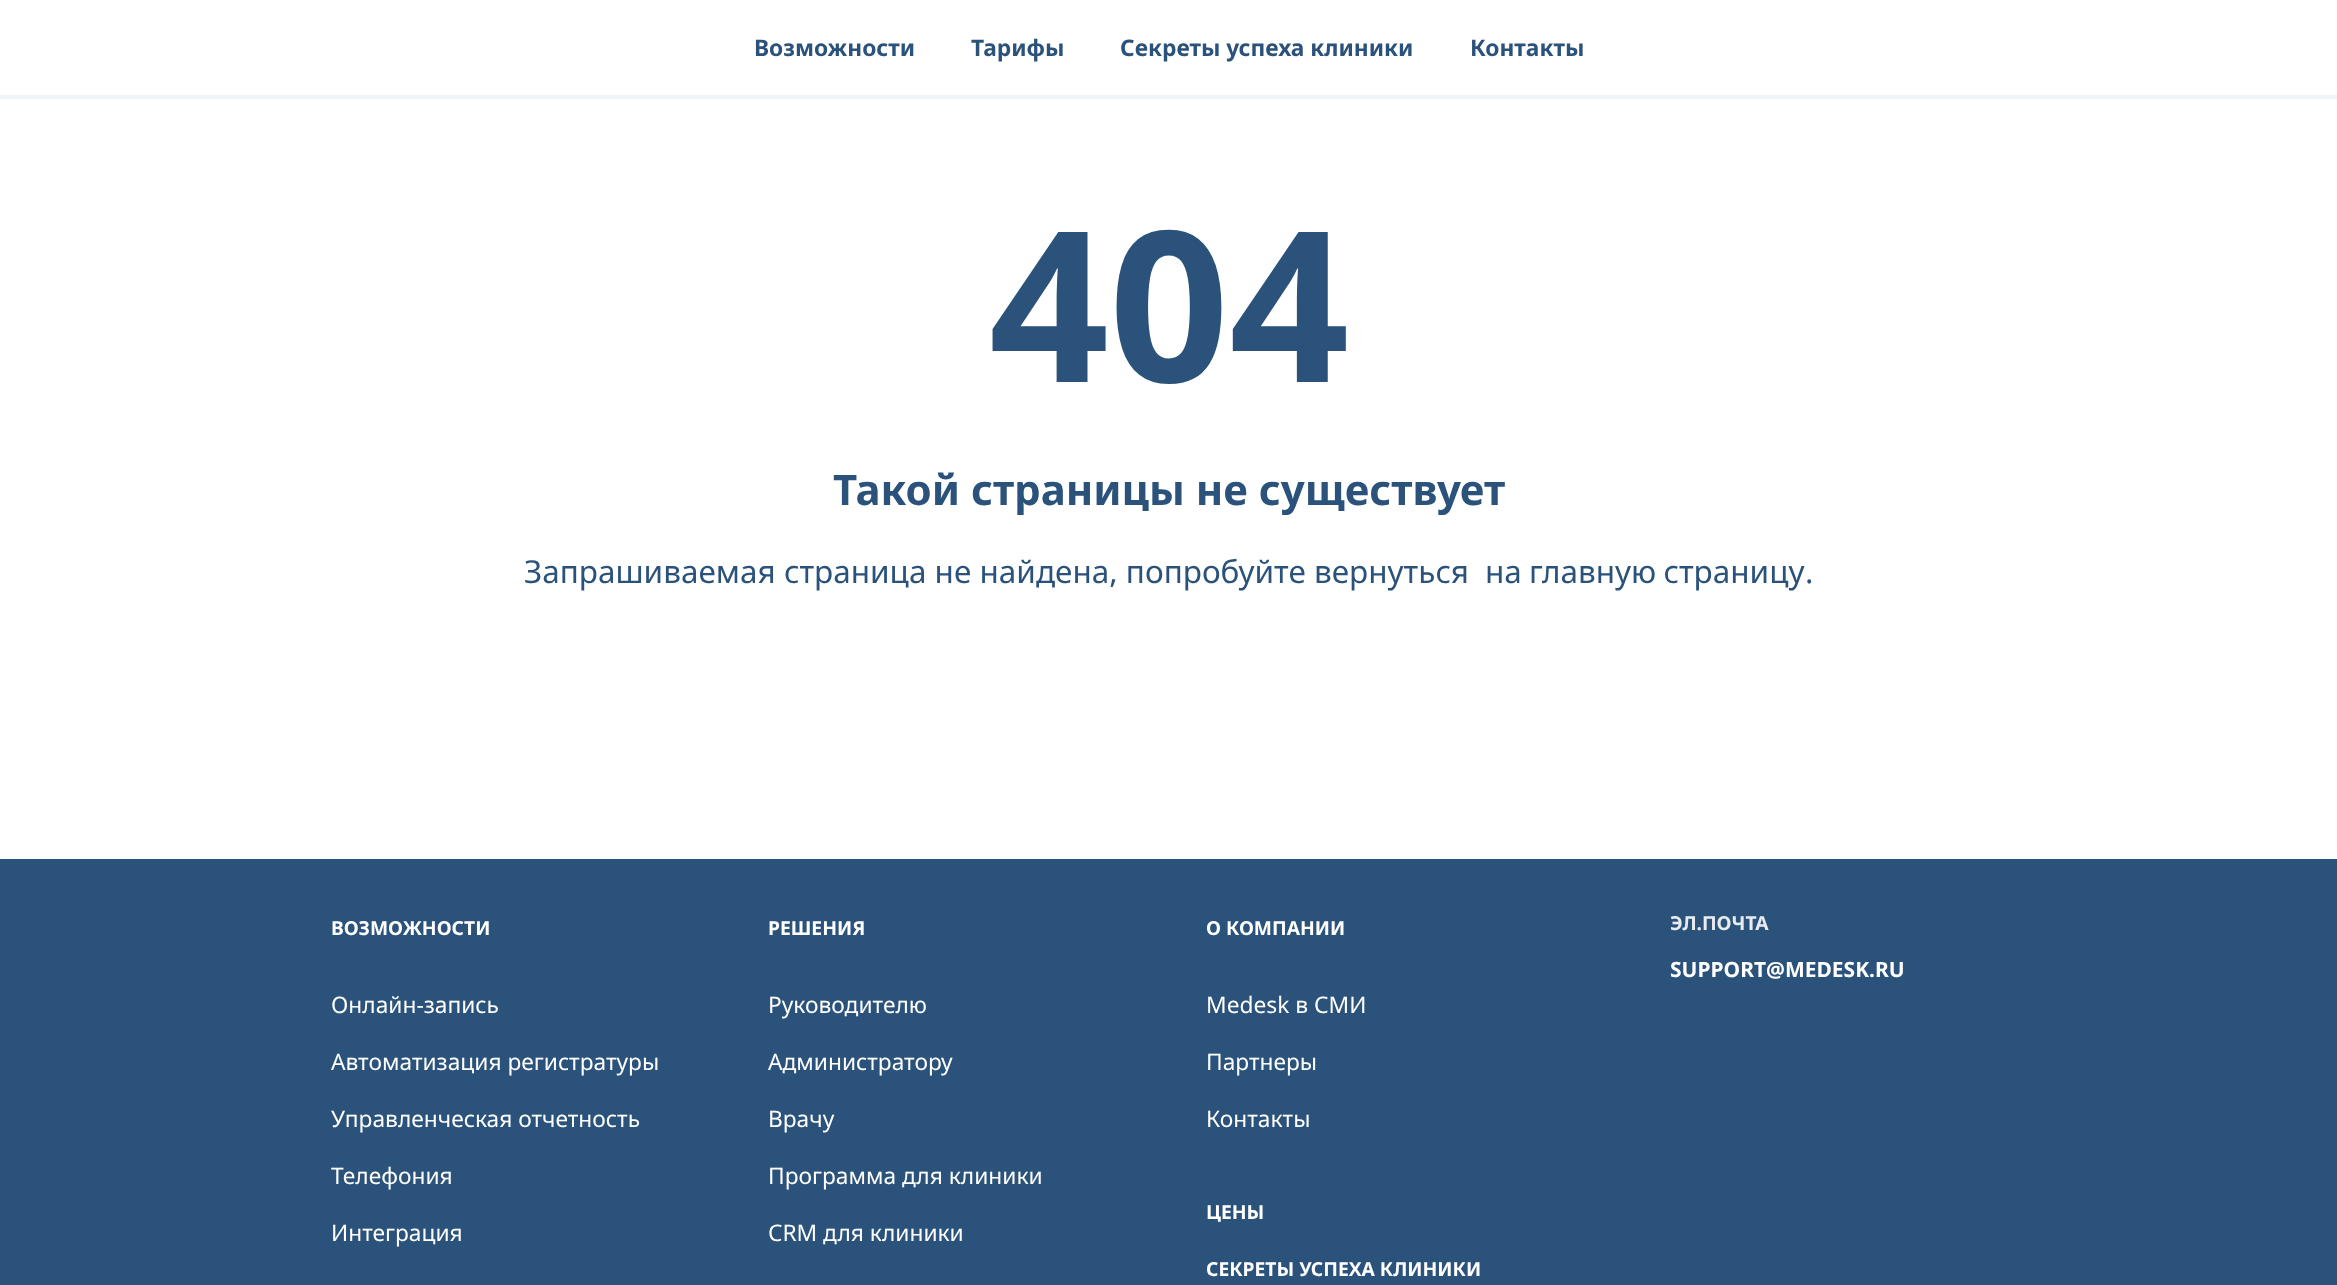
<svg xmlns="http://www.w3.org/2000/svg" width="2337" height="1285">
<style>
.a{font:bold 22.75px Noto Sans;fill:#2a527a}
.b{font:bold 210px Noto Sans;fill:#2a527a}
.c{font:bold 42px Noto Sans;fill:#2a527a}
.d{font:31.5px Noto Sans;fill:#2a527a}
.e{font:bold 19.25px Noto Sans;fill:#fff}
.f{font:22.75px Noto Sans;fill:#fff}
.g{font:bold 19.25px Noto Sans;fill:#e8ecf1}
.h{font:bold 21px Noto Sans;fill:#fff}
</style>
<rect width="100%" height="100%" fill="#fff"/>
<path fill="#f1f4f7" d="M0 95h2337v4H0z"/>
<path fill="#2a527a" d="M0 859h2337v426H0z"/>
<text class="a" x="754" y="56">Возможности</text>
<text class="a" x="971" y="56">Тарифы</text>
<text class="a" x="1120" y="56">Секреты успеха клиники</text>
<text class="a" x="1470" y="56">Контакты</text>
<text class="b" x="989" y="382">404</text>
<text class="c" x="833" y="505">Такой страницы не существует</text>
<text class="d" x="524" y="583">Запрашиваемая страница не найдена, попробуйте вернуться</text>
<text class="d" x="1485" y="583" word-spacing="-1">на главную страницу</text>
<text class="d" x="1805" y="583">.</text>
<text class="e" x="331" y="935">ВОЗМОЖНОСТИ</text>
<text class="f" x="331" y="1013">Онлайн-запись</text>
<text class="f" x="331" y="1070">Автоматизация регистратуры</text>
<text class="f" x="331" y="1127">Управленческая отчетность</text>
<text class="f" x="331" y="1184">Телефония</text>
<text class="f" x="331" y="1241">Интеграция</text>
<text class="e" x="768" y="935">РЕШЕНИЯ</text>
<text class="f" x="768" y="1013">Руководителю</text>
<text class="f" x="768" y="1070">Администратору</text>
<text class="f" x="768" y="1127">Врачу</text>
<text class="f" x="768" y="1184">Программа для клиники</text>
<text class="f" x="768" y="1241">CRM для клиники</text>
<text class="e" x="1206" y="935">О КОМПАНИИ</text>
<text class="f" x="1206" y="1013">Medesk в СМИ</text>
<text class="f" x="1206" y="1070">Партнеры</text>
<text class="f" x="1206" y="1127">Контакты</text>
<text class="e" x="1206" y="1219">ЦЕНЫ</text>
<text class="e" x="1206" y="1276">СЕКРЕТЫ УСПЕХА КЛИНИКИ</text>
<text class="g" x="1670" y="930">ЭЛ.ПОЧТА</text>
<text class="h" x="1670" y="977">SUPPORT@MEDESK.RU</text>
</svg>
